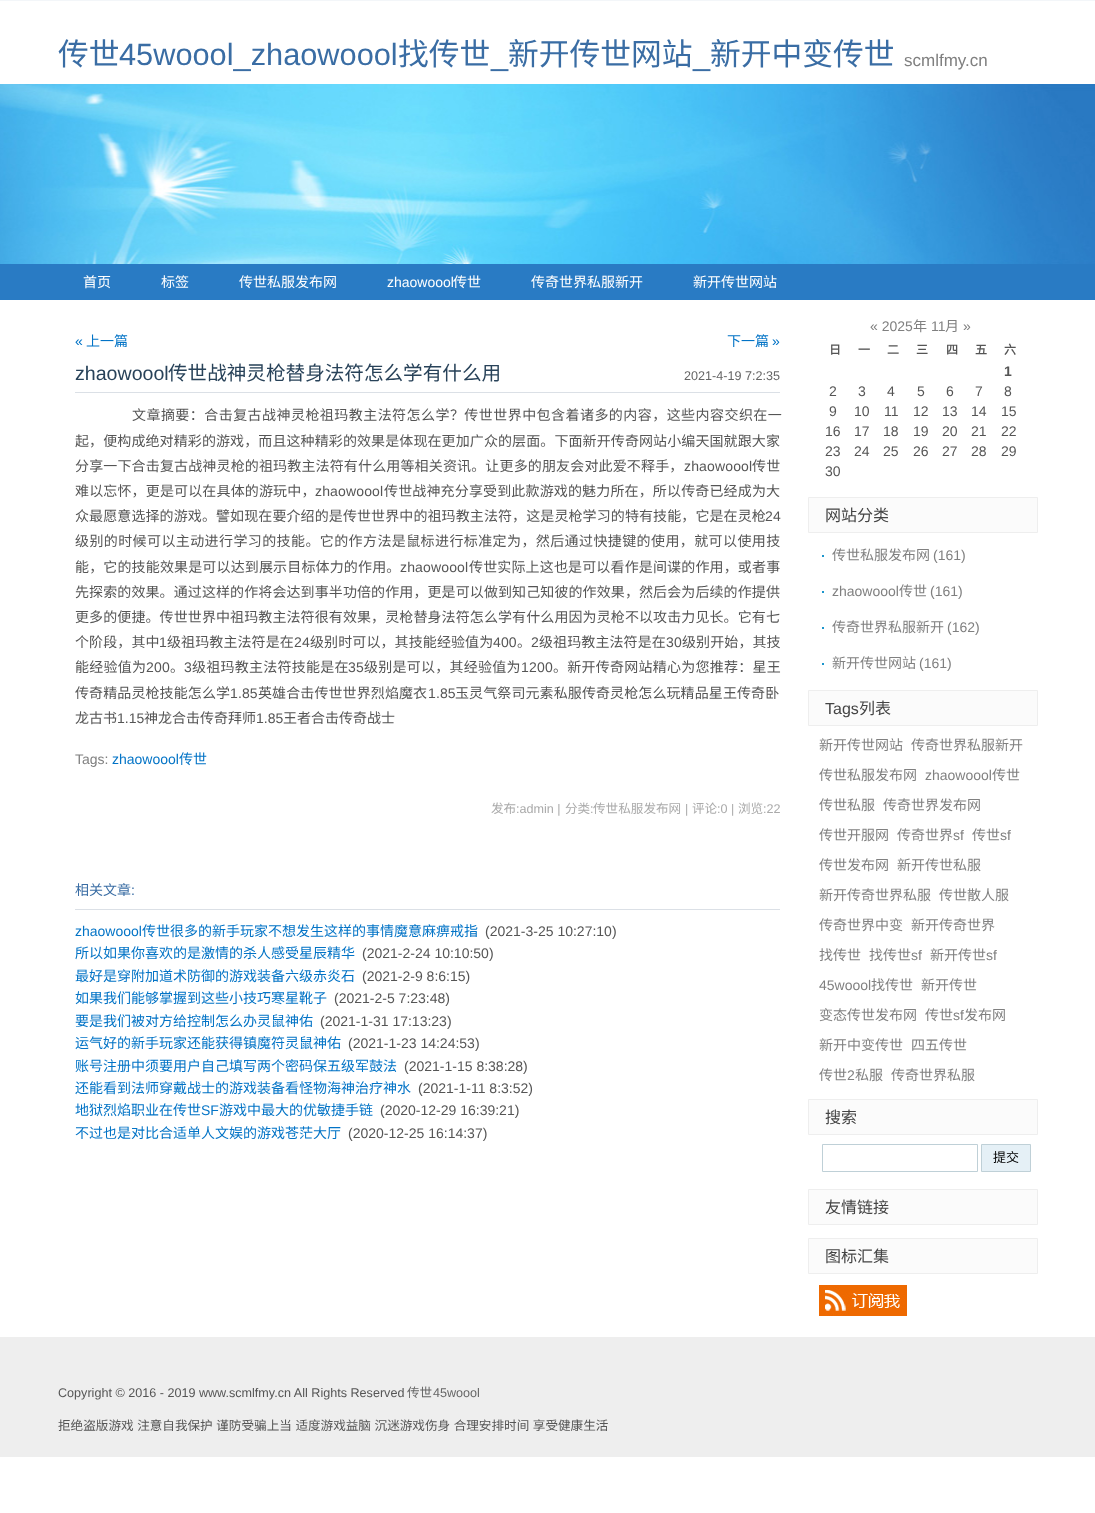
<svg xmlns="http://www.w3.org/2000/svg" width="1095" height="1513">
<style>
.a{font:30.75px Noto Sans CJK SC;fill:#3a6da4}
.b{font:30.75px Liberation Sans;fill:#3a6da4}
.c{font:17px Liberation Sans;fill:#808080}
.d{font:14px Noto Sans CJK SC;fill:#fff}
.e{font:14px Liberation Sans;fill:#fff}
.f{font:14px Liberation Sans;fill:#0273c6}
.g{font:14px Noto Sans CJK SC;fill:#0273c6}
.h{font:19.6px Liberation Sans;fill:#284259}
.i{font:19.6px Noto Sans CJK SC;fill:#284259}
.j{font:12.6px Liberation Sans;fill:#666}
.k{font:14px Noto Sans CJK SC;letter-spacing:0.45px;fill:#555}
.l{font:14px Noto Sans CJK SC;letter-spacing:0.1px;fill:#555}
.m{font:14px Noto Sans CJK SC;letter-spacing:0.15px;fill:#555}
.n{font:14px Liberation Sans;letter-spacing:0.15px;fill:#555}
.o{font:14px Liberation Sans;letter-spacing:0.1px;fill:#555}
.p{font:14px Noto Sans CJK SC;letter-spacing:0.4px;fill:#555}
.q{font:14px Noto Sans CJK SC;letter-spacing:0.25px;fill:#555}
.r{font:14px Liberation Sans;letter-spacing:0.25px;fill:#555}
.s{font:14px Noto Sans CJK SC;fill:#555}
.t{font:14px Liberation Sans;fill:#555}
.u{font:14px Liberation Sans;fill:#808080}
.v{font:12.6px Noto Sans CJK SC;fill:#aaa}
.w{font:12.6px Liberation Sans;fill:#aaa}
.x{font:14px Noto Sans CJK SC;fill:#3a6da4}
.y{font:14px Liberation Sans;fill:#3a6da4}
.z{font:14px Noto Sans CJK SC;fill:#808080}
.a1{font:bold 12px Noto Sans CJK SC;fill:#555}
.b1{font:bold 14px Liberation Sans;fill:#555}
.c1{font:16px Noto Sans CJK SC;fill:#444}
.d1{font:16px Liberation Sans;fill:#444}
.e1{font:13px Noto Sans CJK SC;fill:#000}
.f1{font:12.6px Liberation Sans;fill:#555}
.g1{font:12.6px Noto Sans CJK SC;fill:#666}
.h1{font:12.6px Noto Sans CJK SC;fill:#555}
</style>
<rect width="100%" height="100%" fill="#fff"/>
<image href="1.png" x="0" y="0" width="1095" height="300"/>
<image href="2.png" x="0" y="84" width="1095" height="180"/>
<path fill="#eee" d="M0 1337h1095v120H0z"/>
<path fill="#dbe0e6" d="M75 392h705v1H75z"/>
<path fill="#dbe0e6" d="M75 909h705v1H75z"/>
<path fill="#fbfbfb" stroke="#eee" d="M808.5 497.5h229v35H808.5z"/>
<path fill="#1b95cc" d="M822 555h2v2H822z"/>
<path fill="#1b95cc" d="M822 591h2v2H822z"/>
<path fill="#1b95cc" d="M822 627h2v2H822z"/>
<path fill="#1b95cc" d="M822 663h2v2H822z"/>
<path fill="#fbfbfb" stroke="#eee" d="M808.5 690.5h229v35H808.5z"/>
<path fill="#fbfbfb" stroke="#eee" d="M808.5 1099.5h229v35H808.5z"/>
<path fill="none" stroke="#bfd0d7" d="M822.5 1144.5h155v27H822.5z"/>
<path fill="#e5f0f6" stroke="#bfd0d7" d="M981.5 1144.5h49v27H981.5z"/>
<path fill="#fbfbfb" stroke="#eee" d="M808.5 1189.5h229v35H808.5z"/>
<path fill="#fbfbfb" stroke="#eee" d="M808.5 1238.5h229v35H808.5z"/>
<image href="3.png" x="819" y="1285" width="88" height="31"/>
<text class="a" x="58" y="65">传世</text>
<text class="b" x="119" y="65">45woool_zhaowoool</text>
<text class="a" x="398" y="65">找传世</text>
<text class="b" x="491" y="65">_</text>
<text class="a" x="508" y="65">新开传世网站</text>
<text class="b" x="693" y="65">_</text>
<text class="a" x="710" y="65">新开中变传世</text>
<text class="c" x="904" y="66">scmlfmy.cn</text>
<text class="d" x="83" y="287">首页</text>
<text class="d" x="161" y="287">标签</text>
<text class="d" x="239" y="287">传世私服发布网</text>
<text class="e" x="387" y="287">zhaowoool</text>
<text class="d" x="453" y="287">传世</text>
<text class="d" x="531" y="287">传奇世界私服新开</text>
<text class="d" x="693" y="287">新开传世网站</text>
<text class="f" x="75" y="346">«</text>
<text class="g" x="86" y="346">上一篇</text>
<text class="g" x="727" y="346">下一篇</text>
<text class="f" x="772" y="346">»</text>
<text class="h" x="75" y="380">zhaowoool</text>
<text class="i" x="168" y="380">传世战神灵枪替身法符怎么学有什么用</text>
<text class="j" x="684" y="380">2021-4-19 7:2:35</text>
<text class="k" x="132" y="420">文章摘要：合击复古战神灵枪祖玛教主法符怎么学？传世世界中包含着诸多的内容，这些内容交织在一</text>
<text class="l" x="75" y="446">起，便构成绝对精彩的游戏，而且这种精彩的效果是体现在更加广众的层面。下面新开传奇网站小编天国就跟大家</text>
<text class="m" x="75" y="471">分享一下合击复古战神灵枪的祖玛教主法符有什么用等相关资讯。让更多的朋友会对此爱不释手，</text>
<text class="n" x="684" y="471">zhaowoool</text>
<text class="m" x="752" y="471">传世</text>
<text class="m" x="75" y="496">难以忘怀，更是可以在具体的游玩中，</text>
<text class="n" x="315" y="496">zhaowoool</text>
<text class="m" x="384" y="496">传世战神充分享受到此款游戏的魅力所在，所以传奇已经成为大</text>
<text class="l" x="75" y="521">众最愿意选择的游戏。譬如现在要介绍的是传世世界中的祖玛教主法符，这是灵枪学习的特有技能，它是在灵枪</text>
<text class="o" x="765" y="521">24</text>
<text class="p" x="75" y="546">级别的时候可以主动进行学习的技能。它的作方法是鼠标进行标准定为，然后通过快捷键的使用，就可以使用技</text>
<text class="m" x="75" y="572">能，它的技能效果是可以达到展示目标体力的作用。</text>
<text class="n" x="400" y="572">zhaowoool</text>
<text class="m" x="469" y="572">传世实际上这也是可以看作是间谍的作用，或者事</text>
<text class="l" x="75" y="597">先探索的效果。通过这样的作将会达到事半功倍的作用，更是可以做到知己知彼的作效果，然后会为后续的作提供</text>
<text class="l" x="75" y="622">更多的便捷。传世世界中祖玛教主法符很有效果，灵枪替身法符怎么学有什么用因为灵枪不以攻击力见长。它有七</text>
<text class="l" x="75" y="647">个阶段，其中</text>
<text class="o" x="159" y="647">1</text>
<text class="l" x="167" y="647">级祖玛教主法符是在</text>
<text class="o" x="294" y="647">24</text>
<text class="l" x="310" y="647">级别时可以，其技能经验值为</text>
<text class="o" x="493" y="647">400</text>
<text class="l" x="517" y="647">。</text>
<text class="o" x="531" y="647">2</text>
<text class="l" x="539" y="647">级祖玛教主法符是在</text>
<text class="o" x="666" y="647">30</text>
<text class="l" x="682" y="647">级别开始，其技</text>
<text class="q" x="75" y="672">能经验值为</text>
<text class="r" x="146" y="672">200</text>
<text class="q" x="170" y="672">。</text>
<text class="r" x="184" y="672">3</text>
<text class="q" x="192" y="672">级祖玛教主法符技能是在</text>
<text class="r" x="348" y="672">35</text>
<text class="q" x="364" y="672">级别是可以，其经验值为</text>
<text class="r" x="521" y="672">1200</text>
<text class="q" x="553" y="672">。新开传奇网站精心为您推荐：星王</text>
<text class="l" x="75" y="698">传奇精品灵枪技能怎么学</text>
<text class="o" x="230" y="698">1.85</text>
<text class="l" x="258" y="698">英雄合击传世世界烈焰魔衣</text>
<text class="o" x="428" y="698">1.85</text>
<text class="l" x="455" y="698">玉灵气祭司元素私服传奇灵枪怎么玩精品星王传奇卧</text>
<text class="s" x="75" y="723">龙古书</text>
<text class="t" x="117" y="723">1.15</text>
<text class="s" x="144" y="723">神龙合击传奇拜师</text>
<text class="t" x="256" y="723">1.85</text>
<text class="s" x="283" y="723">王者合击传奇战士</text>
<text class="u" x="75" y="764">Tags:</text>
<text class="f" x="112" y="764">zhaowoool</text>
<text class="g" x="179" y="764">传世</text>
<text class="v" x="491" y="813">发布</text>
<text class="w" x="516" y="813">:admin |</text>
<text class="v" x="565" y="813">分类</text>
<text class="w" x="590" y="813">:</text>
<text class="v" x="593" y="813">传世私服发布网</text>
<text class="w" x="685" y="813">|</text>
<text class="v" x="692" y="813">评论</text>
<text class="w" x="717" y="813">:0 |</text>
<text class="v" x="738" y="813">浏览</text>
<text class="w" x="763" y="813">:22</text>
<text class="x" x="75" y="895">相关文章</text>
<text class="y" x="131" y="895">:</text>
<text class="f" x="75" y="936">zhaowoool</text>
<text class="g" x="142" y="936">传世很多的新手玩家不想发生这样的事情魔意麻痹戒指</text>
<text class="t" x="485" y="936">(2021-3-25 10:27:10)</text>
<text class="g" x="75" y="958">所以如果你喜欢的是激情的杀人感受星辰精华</text>
<text class="t" x="362" y="958">(2021-2-24 10:10:50)</text>
<text class="g" x="75" y="981">最好是穿附加道术防御的游戏装备六级赤炎石</text>
<text class="t" x="362" y="981">(2021-2-9 8:6:15)</text>
<text class="g" x="75" y="1003">如果我们能够掌握到这些小技巧寒星靴子</text>
<text class="t" x="334" y="1003">(2021-2-5 7:23:48)</text>
<text class="g" x="75" y="1026">要是我们被对方给控制怎么办灵鼠神佑</text>
<text class="t" x="320" y="1026">(2021-1-31 17:13:23)</text>
<text class="g" x="75" y="1048">运气好的新手玩家还能获得镇魔符灵鼠神佑</text>
<text class="t" x="348" y="1048">(2021-1-23 14:24:53)</text>
<text class="g" x="75" y="1071">账号注册中须要用户自己填写两个密码保五级军鼓法</text>
<text class="t" x="404" y="1071">(2021-1-15 8:38:28)</text>
<text class="g" x="75" y="1093">还能看到法师穿戴战士的游戏装备看怪物海神治疗神水</text>
<text class="t" x="418" y="1093">(2021-1-11 8:3:52)</text>
<text class="g" x="75" y="1115">地狱烈焰职业在传世</text>
<text class="f" x="201" y="1115">SF</text>
<text class="g" x="219" y="1115">游戏中最大的优敏捷手链</text>
<text class="t" x="380" y="1115">(2020-12-29 16:39:21)</text>
<text class="g" x="75" y="1138">不过也是对比合适单人文娱的游戏苍茫大厅</text>
<text class="t" x="348" y="1138">(2020-12-25 16:14:37)</text>
<text class="u" x="870" y="331">« 2025</text>
<text class="z" x="913" y="331">年</text>
<text class="u" x="931" y="331">11</text>
<text class="z" x="945" y="331">月</text>
<text class="u" x="963" y="331">»</text>
<text class="a1" x="829" y="354">日</text>
<text class="a1" x="858" y="354">一</text>
<text class="a1" x="887" y="354">二</text>
<text class="a1" x="916" y="354">三</text>
<text class="a1" x="946" y="354">四</text>
<text class="a1" x="975" y="354">五</text>
<text class="a1" x="1004" y="354">六</text>
<text class="b1" x="1004" y="376">1</text>
<text class="t" x="829" y="396">2</text>
<text class="t" x="858" y="396">3</text>
<text class="t" x="887" y="396">4</text>
<text class="t" x="917" y="396">5</text>
<text class="t" x="946" y="396">6</text>
<text class="t" x="975" y="396">7</text>
<text class="t" x="1004" y="396">8</text>
<text class="t" x="829" y="416">9</text>
<text class="t" x="854" y="416">10</text>
<text class="t" x="884" y="416">11</text>
<text class="t" x="913" y="416">12</text>
<text class="t" x="942" y="416">13</text>
<text class="t" x="971" y="416">14</text>
<text class="t" x="1001" y="416">15</text>
<text class="t" x="825" y="436">16</text>
<text class="t" x="854" y="436">17</text>
<text class="t" x="883" y="436">18</text>
<text class="t" x="913" y="436">19</text>
<text class="t" x="942" y="436">20</text>
<text class="t" x="971" y="436">21</text>
<text class="t" x="1001" y="436">22</text>
<text class="t" x="825" y="456">23</text>
<text class="t" x="854" y="456">24</text>
<text class="t" x="883" y="456">25</text>
<text class="t" x="913" y="456">26</text>
<text class="t" x="942" y="456">27</text>
<text class="t" x="971" y="456">28</text>
<text class="t" x="1001" y="456">29</text>
<text class="t" x="825" y="476">30</text>
<text class="c1" x="825" y="521">网站分类</text>
<text class="z" x="832" y="560">传世私服发布网</text>
<text class="u" x="933" y="560">(161)</text>
<text class="u" x="832" y="596">zhaowoool</text>
<text class="z" x="899" y="596">传世</text>
<text class="u" x="930" y="596">(161)</text>
<text class="z" x="832" y="632">传奇世界私服新开</text>
<text class="u" x="947" y="632">(162)</text>
<text class="z" x="832" y="668">新开传世网站</text>
<text class="u" x="919" y="668">(161)</text>
<text class="d1" x="825" y="714">Tags</text>
<text class="c1" x="859" y="714">列表</text>
<text class="z" x="819" y="750">新开传世网站</text>
<text class="z" x="911" y="750">传奇世界私服新开</text>
<text class="z" x="819" y="780">传世私服发布网</text>
<text class="u" x="925" y="780">zhaowoool</text>
<text class="z" x="992" y="780">传世</text>
<text class="z" x="819" y="810">传世私服</text>
<text class="z" x="883" y="810">传奇世界发布网</text>
<text class="z" x="819" y="840">传世开服网</text>
<text class="z" x="897" y="840">传奇世界</text>
<text class="u" x="953" y="840">sf</text>
<text class="z" x="972" y="840">传世</text>
<text class="u" x="1000" y="840">sf</text>
<text class="z" x="819" y="870">传世发布网</text>
<text class="z" x="897" y="870">新开传世私服</text>
<text class="z" x="819" y="900">新开传奇世界私服</text>
<text class="z" x="939" y="900">传世散人服</text>
<text class="z" x="819" y="930">传奇世界中变</text>
<text class="z" x="911" y="930">新开传奇世界</text>
<text class="z" x="819" y="960">找传世</text>
<text class="z" x="869" y="960">找传世</text>
<text class="u" x="911" y="960">sf</text>
<text class="z" x="930" y="960">新开传世</text>
<text class="u" x="986" y="960">sf</text>
<text class="u" x="819" y="990">45woool</text>
<text class="z" x="871" y="990">找传世</text>
<text class="z" x="921" y="990">新开传世</text>
<text class="z" x="819" y="1020">变态传世发布网</text>
<text class="z" x="925" y="1020">传世</text>
<text class="u" x="953" y="1020">sf</text>
<text class="z" x="964" y="1020">发布网</text>
<text class="z" x="819" y="1050">新开中变传世</text>
<text class="z" x="911" y="1050">四五传世</text>
<text class="z" x="819" y="1080">传世</text>
<text class="u" x="847" y="1080">2</text>
<text class="z" x="855" y="1080">私服</text>
<text class="z" x="891" y="1080">传奇世界私服</text>
<text class="c1" x="825" y="1123">搜索</text>
<text class="e1" x="993" y="1162">提交</text>
<text class="c1" x="825" y="1213">友情链接</text>
<text class="c1" x="825" y="1262">图标汇集</text>
<text class="f1" x="58" y="1397">Copyright © 2016 - 2019 www.scmlfmy.cn All Rights Reserved</text>
<text class="g1" x="407" y="1397">传世</text>
<text class="j" x="433" y="1397">45woool</text>
<text class="h1" x="58" y="1430" word-spacing="0.75">拒绝盗版游戏 注意自我保护 谨防受骗上当 适度游戏益脑 沉迷游戏伤身 合理安排时间 享受健康生活</text>
</svg>
